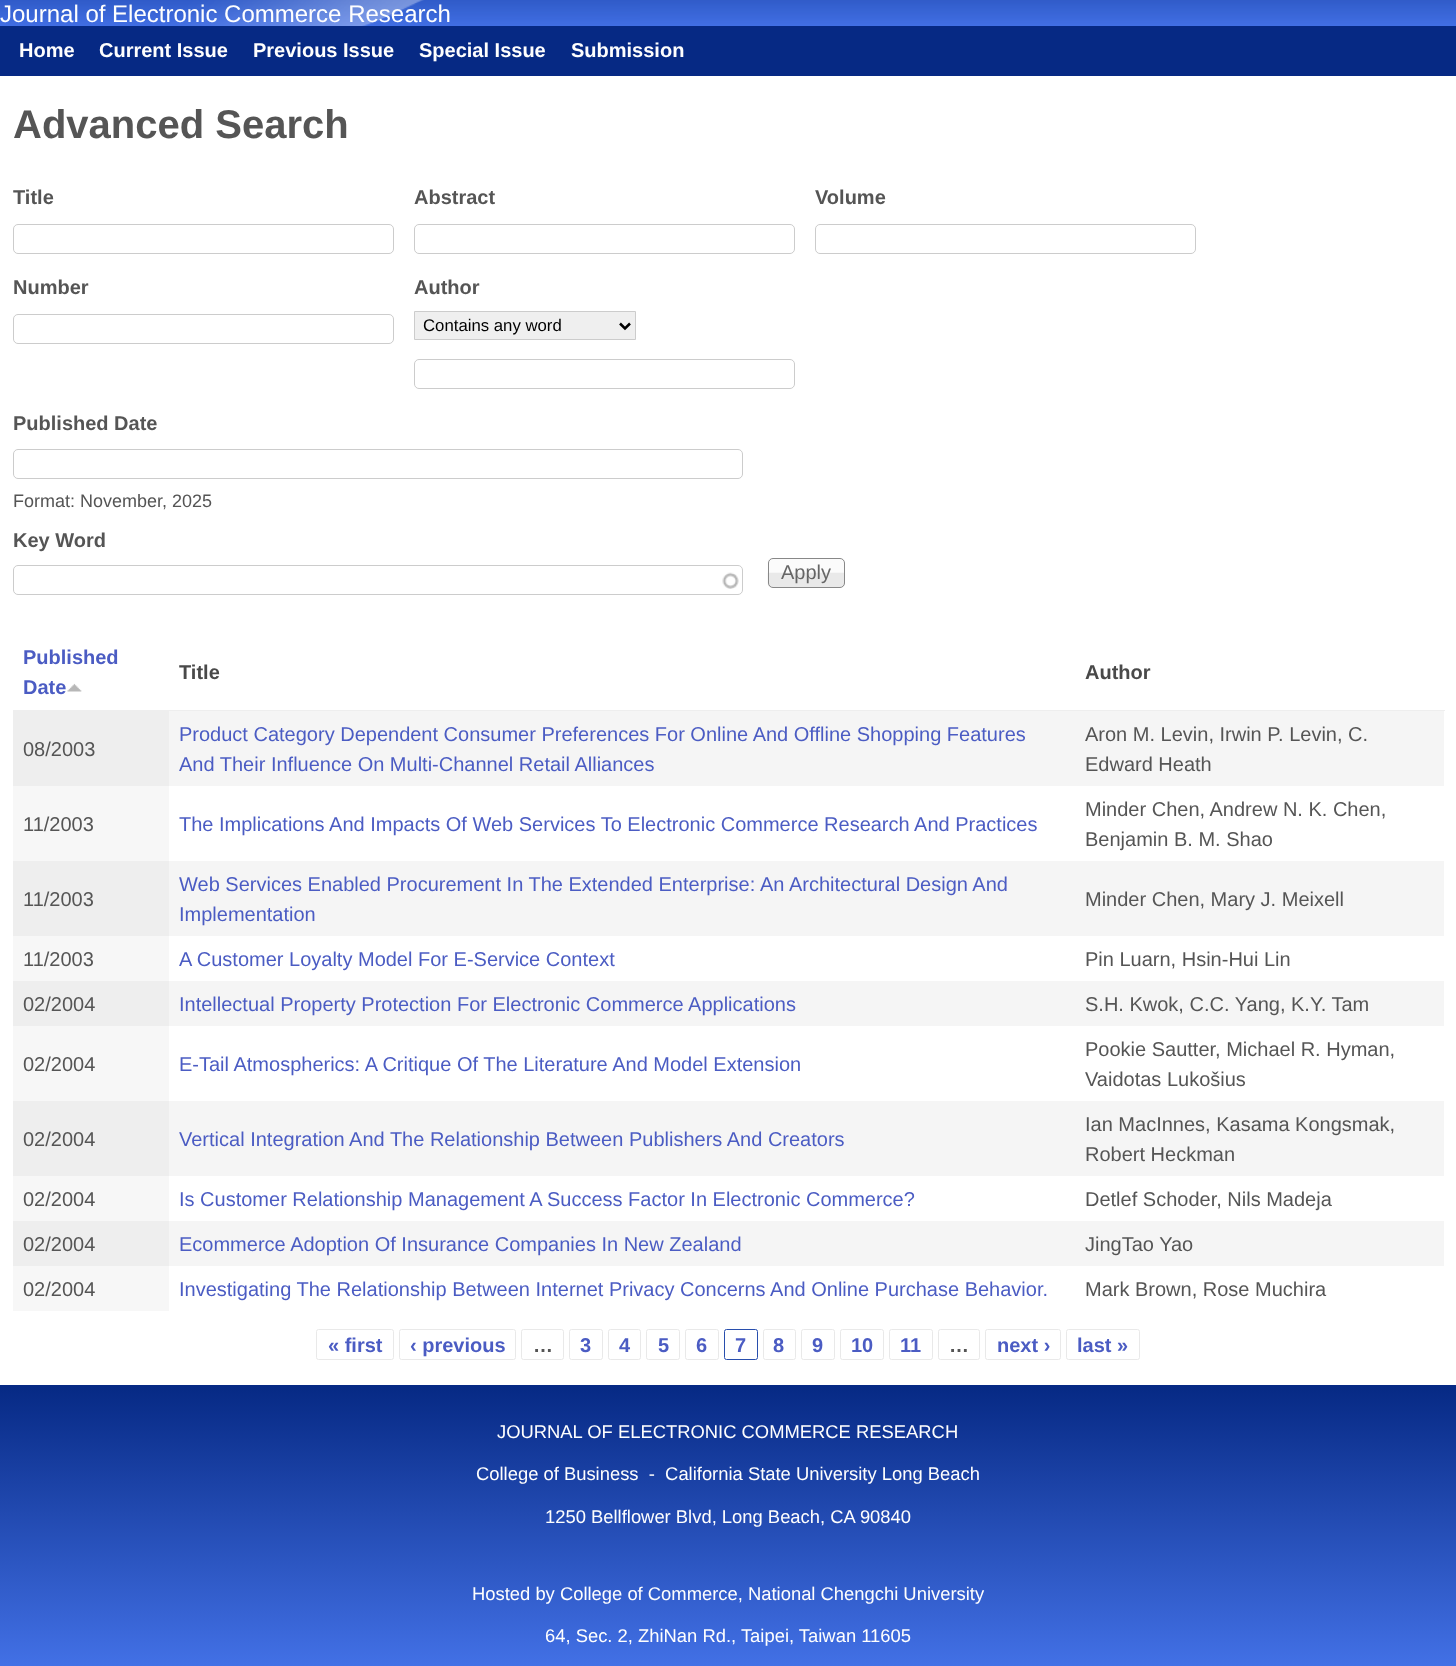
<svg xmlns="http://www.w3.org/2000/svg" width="1456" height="1666">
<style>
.a{font:24px Liberation Sans;fill:#fefefe}
.b{font:bold 20px Liberation Sans;fill:#fefefe}
.c{font:bold 40px Liberation Sans;fill:#555}
.d{font:bold 20px Liberation Sans;fill:#555}
.e{font:16.75px Liberation Sans;fill:#000}
.f{font:18px Liberation Sans;fill:#555}
.g{font:20px Liberation Sans;fill:#666}
.h{font:bold 20px Liberation Sans;fill:#4b5cc3}
.i{font:bold 20px Liberation Sans;fill:#494949}
.j{font:20px Liberation Sans;fill:#555}
.k{font:20px Liberation Sans;fill:#4b5cc3}
.l{font:18.4px Liberation Sans;fill:#fefefe}
</style>
<defs>
<linearGradient id="g1" gradientUnits="userSpaceOnUse" x1="0" y1="1385" x2="0" y2="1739"><stop offset="0" stop-color="#062984"/><stop offset="1" stop-color="#5283ff"/></linearGradient>
</defs>
<rect width="100%" height="100%" fill="#fff"/>
<image href="1.png" x="640" y="0" width="816" height="26"/>
<image href="2.png" x="0" y="0" width="640" height="26"/>
<path fill="#062984" d="M0 26h1456v50H0z"/>
<rect fill="none" stroke="#ccc" x="13.5" y="224.5" width="380" height="29" rx="4.5"/>
<rect fill="none" stroke="#ccc" x="414.5" y="224.5" width="380" height="29" rx="4.5"/>
<rect fill="none" stroke="#ccc" x="815.5" y="224.5" width="380" height="29" rx="4.5"/>
<rect fill="none" stroke="#ccc" x="13.5" y="314.5" width="380" height="29" rx="4.5"/>
<path fill="#efefef" stroke="#ccc" d="M414.5 311.5h221v28H414.5z"/>
<path fill="none" stroke="#000" stroke-width="2.5" d="M620 323.5l5 5l5-5"/>
<rect fill="none" stroke="#ccc" x="414.5" y="359.5" width="380" height="29" rx="4.5"/>
<rect fill="none" stroke="#ccc" x="13.5" y="449.5" width="729" height="29" rx="4.5"/>
<image href="3.png" x="722" y="572" width="17" height="17"/>
<rect fill="none" stroke="#ccc" x="13.5" y="565.5" width="729" height="29" rx="4.5"/>
<image href="4.png" x="767" y="558" width="78" height="30"/>
<rect fill="none" stroke="#888" x="768.5" y="558.5" width="76" height="29" rx="4.5"/>
<image href="5.png" x="67" y="683" width="15" height="9"/>
<path fill="#eee" d="M13 710h1432v1H13z"/>
<path fill="#f5f5f5" d="M169 711h1275v75H169z"/>
<path fill="#eee" d="M13 711h156v75H13z"/>
<path fill="#f7f7f7" d="M13 786h156v75H13z"/>
<path fill="#f5f5f5" d="M169 861h1275v75H169z"/>
<path fill="#eee" d="M13 861h156v75H13z"/>
<path fill="#f7f7f7" d="M13 936h156v45H13z"/>
<path fill="#f5f5f5" d="M169 981h1275v45H169z"/>
<path fill="#eee" d="M13 981h156v45H13z"/>
<path fill="#f7f7f7" d="M13 1026h156v75H13z"/>
<path fill="#f5f5f5" d="M169 1101h1275v75H169z"/>
<path fill="#eee" d="M13 1101h156v75H13z"/>
<path fill="#f7f7f7" d="M13 1176h156v45H13z"/>
<path fill="#f5f5f5" d="M169 1221h1275v45H169z"/>
<path fill="#eee" d="M13 1221h156v45H13z"/>
<path fill="#f7f7f7" d="M13 1266h156v45H13z"/>
<rect fill="none" stroke="#e9e9e9" x="316.5" y="1329.5" width="77" height="30" rx="2"/>
<rect fill="none" stroke="#e9e9e9" x="399.5" y="1329.5" width="116" height="30" rx="2"/>
<rect fill="none" stroke="#e9e9e9" x="521.5" y="1329.5" width="42" height="30" rx="2"/>
<rect fill="none" stroke="#e9e9e9" x="569.5" y="1329.5" width="33" height="30" rx="2"/>
<rect fill="none" stroke="#e9e9e9" x="608.5" y="1329.5" width="32" height="30" rx="2"/>
<rect fill="none" stroke="#e9e9e9" x="646.5" y="1329.5" width="33" height="30" rx="2"/>
<rect fill="none" stroke="#e9e9e9" x="685.5" y="1329.5" width="33" height="30" rx="2"/>
<rect fill="none" stroke="#284ead" x="724.5" y="1329.5" width="33" height="30" rx="2"/>
<rect fill="none" stroke="#e9e9e9" x="763.5" y="1329.5" width="32" height="30" rx="2"/>
<rect fill="none" stroke="#e9e9e9" x="801.5" y="1329.5" width="33" height="30" rx="2"/>
<rect fill="none" stroke="#e9e9e9" x="840.5" y="1329.5" width="43" height="30" rx="2"/>
<rect fill="none" stroke="#e9e9e9" x="889.5" y="1329.5" width="43" height="30" rx="2"/>
<rect fill="none" stroke="#e9e9e9" x="938.5" y="1329.5" width="41" height="30" rx="2"/>
<rect fill="none" stroke="#e9e9e9" x="985.5" y="1329.5" width="75" height="30" rx="2"/>
<rect fill="none" stroke="#e9e9e9" x="1066.5" y="1329.5" width="73" height="30" rx="2"/>
<path fill="url(#g1)" d="M0 1385h1456v281H0z"/>
<text class="a" x="0" y="22">Journal of Electronic Commerce Research</text>
<text class="b" x="19" y="57">Home</text>
<text class="b" x="99" y="57">Current Issue</text>
<text class="b" x="253" y="57">Previous Issue</text>
<text class="b" x="419" y="57">Special Issue</text>
<text class="b" x="571" y="57">Submission</text>
<text class="c" x="13" y="138">Advanced Search</text>
<text class="d" x="13" y="204">Title</text>
<text class="d" x="414" y="204">Abstract</text>
<text class="d" x="815" y="204">Volume</text>
<text class="d" x="13" y="294">Number</text>
<text class="d" x="414" y="294">Author</text>
<text class="e" x="423" y="331">Contains any word</text>
<text class="d" x="13" y="430">Published Date</text>
<text class="f" x="13" y="507">Format: November, 2025</text>
<text class="d" x="13" y="547">Key Word</text>
<text class="g" x="781" y="579">Apply</text>
<text class="h" x="23" y="664">Published</text>
<text class="h" x="23" y="694">Date</text>
<text class="i" x="179" y="679">Title</text>
<text class="i" x="1085" y="679">Author</text>
<text class="j" x="23" y="756">08/2003</text>
<text class="k" x="179" y="741">Product Category Dependent Consumer Preferences For Online And Offline Shopping Features</text>
<text class="k" x="179" y="771">And Their Influence On Multi-Channel Retail Alliances</text>
<text class="j" x="1085" y="741">Aron M. Levin, Irwin P. Levin, C.</text>
<text class="j" x="1085" y="771">Edward Heath</text>
<text class="j" x="23" y="831">11/2003</text>
<text class="k" x="179" y="831">The Implications And Impacts Of Web Services To Electronic Commerce Research And Practices</text>
<text class="j" x="1085" y="816">Minder Chen, Andrew N. K. Chen,</text>
<text class="j" x="1085" y="846">Benjamin B. M. Shao</text>
<text class="j" x="23" y="906">11/2003</text>
<text class="k" x="179" y="891">Web Services Enabled Procurement In The Extended Enterprise:</text>
<text class="k" x="760" y="891">An Architectural Design And</text>
<text class="k" x="179" y="921">Implementation</text>
<text class="j" x="1085" y="906">Minder Chen, Mary J. Meixell</text>
<text class="j" x="23" y="966">11/2003</text>
<text class="k" x="179" y="966">A Customer Loyalty Model For E-Service Context</text>
<text class="j" x="1085" y="966">Pin Luarn, Hsin-Hui Lin</text>
<text class="j" x="23" y="1011">02/2004</text>
<text class="k" x="179" y="1011">Intellectual Property Protection For Electronic Commerce Applications</text>
<text class="j" x="1085" y="1011">S.H. Kwok, C.C. Yang, K.Y. Tam</text>
<text class="j" x="23" y="1071">02/2004</text>
<text class="k" x="179" y="1071">E-Tail Atmospherics: A Critique Of The Literature And Model Extension</text>
<text class="j" x="1085" y="1056">Pookie Sautter, Michael R. Hyman,</text>
<text class="j" x="1085" y="1086">Vaidotas Lukošius</text>
<text class="j" x="23" y="1146">02/2004</text>
<text class="k" x="179" y="1146">Vertical Integration And The Relationship Between Publishers And Creators</text>
<text class="j" x="1085" y="1131">Ian MacInnes, Kasama Kongsmak,</text>
<text class="j" x="1085" y="1161">Robert Heckman</text>
<text class="j" x="23" y="1206">02/2004</text>
<text class="k" x="179" y="1206">Is Customer Relationship Management A Success Factor In Electronic Commerce?</text>
<text class="j" x="1085" y="1206">Detlef Schoder, Nils Madeja</text>
<text class="j" x="23" y="1251">02/2004</text>
<text class="k" x="179" y="1251">Ecommerce Adoption Of Insurance Companies In New Zealand</text>
<text class="j" x="1085" y="1251">JingTao Yao</text>
<text class="j" x="23" y="1296">02/2004</text>
<text class="k" x="179" y="1296">Investigating The Relationship Between Internet Privacy Concerns And Online Purchase Behavior.</text>
<text class="j" x="1085" y="1296">Mark Brown, Rose Muchira</text>
<text class="h" x="328" y="1352">« first</text>
<text class="h" x="410" y="1352">‹ previous</text>
<text class="d" x="533" y="1352">…</text>
<text class="h" x="580" y="1352">3</text>
<text class="h" x="619" y="1352">4</text>
<text class="h" x="658" y="1352">5</text>
<text class="h" x="696" y="1352">6</text>
<text class="h" x="735" y="1352">7</text>
<text class="h" x="773" y="1352">8</text>
<text class="h" x="812" y="1352">9</text>
<text class="h" x="851" y="1352">10</text>
<text class="h" x="900" y="1352">11</text>
<text class="d" x="949" y="1352">…</text>
<text class="h" x="997" y="1352">next ›</text>
<text class="h" x="1077" y="1352">last »</text>
<text class="l" x="497" y="1438">JOURNAL OF ELECTRONIC COMMERCE RESEARCH</text>
<text class="l" xml:space="preserve" x="476" y="1480">College of Business  -  California State University Long Beach</text>
<text class="l" x="545" y="1523">1250 Bellflower Blvd, Long Beach, CA 90840</text>
<text class="l" x="472" y="1600">Hosted by College of Commerce, National Chengchi University</text>
<text class="l" x="545" y="1642">64, Sec. 2, ZhiNan Rd., Taipei, Taiwan 11605</text>
</svg>
